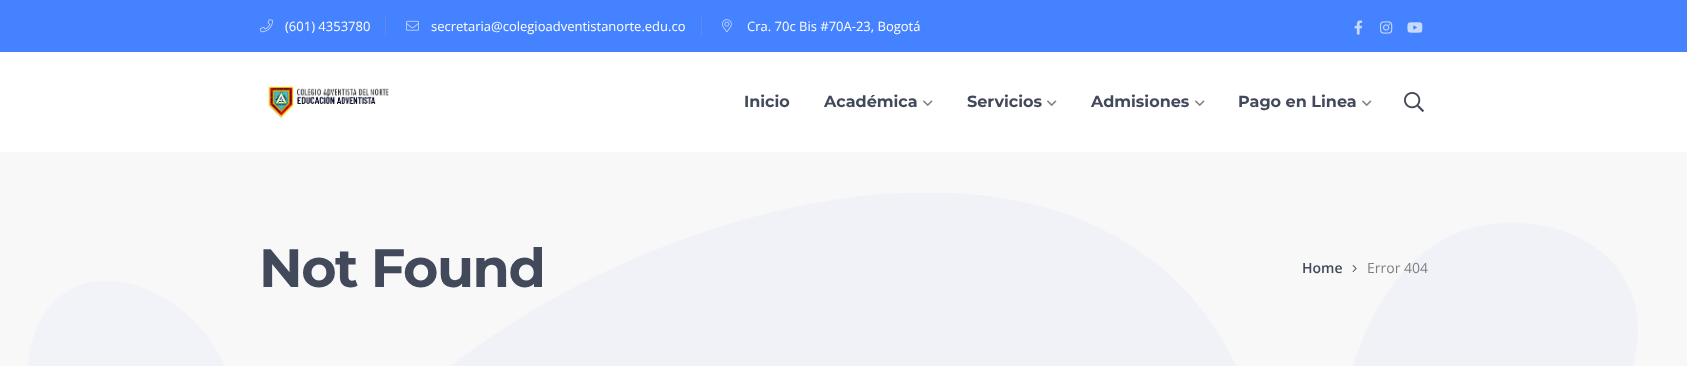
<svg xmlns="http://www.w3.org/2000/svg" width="1687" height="366">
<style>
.a{font:13px Open Sans;fill:#fff}
.b{font:bold 16px Montserrat;fill:#42495b}
.c{font:bold 54px Montserrat;letter-spacing:-1.5px;fill:#42495b}
.d{font:600 14px Open Sans;fill:#42495b}
.e{font:14px Open Sans;fill:#808080}
</style>
<rect width="100%" height="100%" fill="#fff"/>
<path fill="#4582ff" d="M0 0h1687v52H0z"/>
<image href="1.png" x="260" y="19" width="13" height="14"/>
<path fill="#618be6" d="M385 16h1v20H385z"/>
<image href="2.png" x="406" y="20" width="13" height="11"/>
<path fill="#618be6" d="M701 16h1v20H701z"/>
<image href="3.png" x="722" y="19" width="10" height="14"/>
<image href="4.png" x="1354" y="20" width="9" height="15"/>
<image href="5.png" x="1380" y="21" width="13" height="13"/>
<image href="6.png" x="1407" y="22" width="16" height="11"/>
<image href="7.png" x="268" y="86" width="121" height="32"/>
<image href="8.png" x="923" y="100" width="10" height="6"/>
<image href="8.png" x="1047" y="100" width="10" height="6"/>
<image href="8.png" x="1195" y="100" width="10" height="6"/>
<image href="8.png" x="1362" y="100" width="10" height="6"/>
<image href="9.png" x="1404" y="92" width="20" height="20"/>
<path fill="#f8f8f8" d="M0 152h1687v214H0z"/>
<image href="10.png" x="28" y="193" width="1610" height="173"/>
<image href="11.png" x="1352" y="265" width="5" height="7"/>
<text class="a" x="285" y="31">(601) 4353780</text>
<text class="a" x="431" y="31">secretaria@colegioadventistanorte.edu.co</text>
<text class="a" x="747" y="31">Cra. 70c Bis #70A-23, Bogotá</text>
<text class="b" x="744" y="107">Inicio</text>
<text class="b" x="824" y="107">Académica</text>
<text class="b" x="967" y="107">Servicios</text>
<text class="b" x="1091" y="107">Admisiones</text>
<text class="b" x="1238" y="107">Pago en Linea</text>
<text class="c" x="259" y="287">Not Found</text>
<text class="d" x="1302" y="273">Home</text>
<text class="e" x="1367" y="273">Error 404</text>
</svg>
